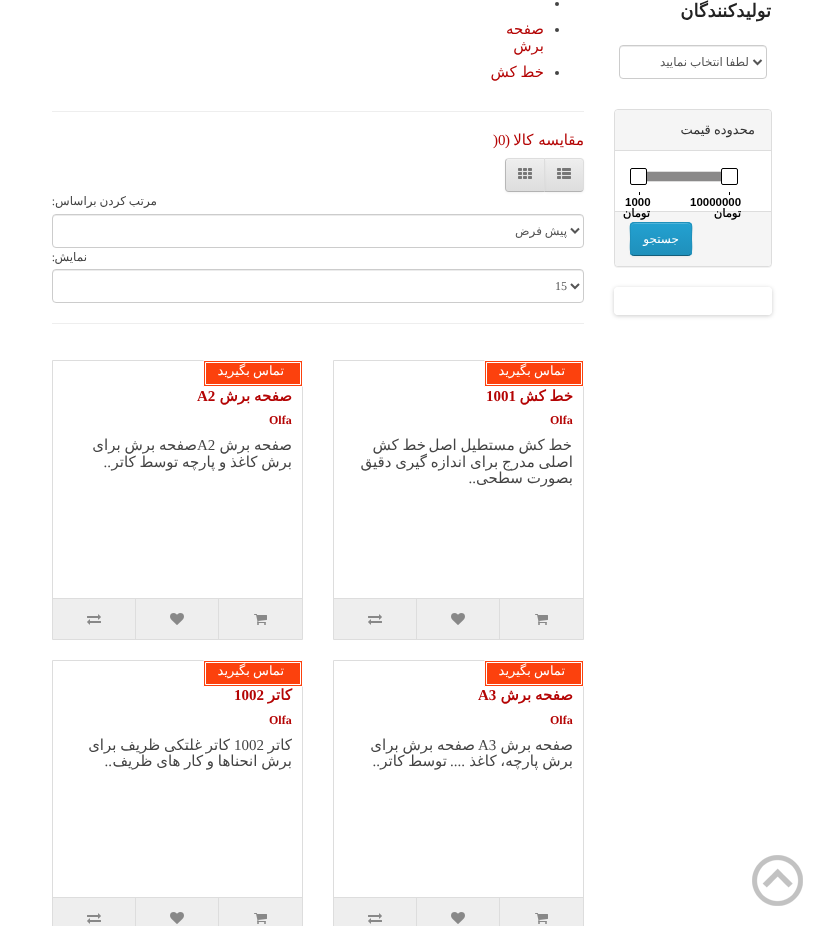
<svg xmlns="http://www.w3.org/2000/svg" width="823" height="926">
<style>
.a{font:bold 18px DejaVu Sans;direction:rtl;fill:#222}
.b{font:12px DejaVu Sans;direction:rtl;fill:#555}
.c{font:13px DejaVu Sans;direction:rtl;fill:#333}
.d{font:bold 11.5px Liberation Sans;fill:#000}
.e{font:bold 11.5px DejaVu Sans;direction:rtl;fill:#000}
.f{font:12px DejaVu Sans;direction:rtl;fill:#fff}
.g{font:15px DejaVu Sans;direction:rtl;fill:#b40404}
.h{font:15px Liberation Serif;direction:rtl;fill:#b40404}
.i{font:15px Liberation Serif;fill:#b40404}
.j{font:12px DejaVu Sans;direction:rtl;fill:#444}
.k{font:12px Liberation Serif;direction:rtl;fill:#444}
.l{font:12px Liberation Serif;fill:#555}
.m{font:13px DejaVu Sans;direction:rtl;fill:#fff}
.n{font:bold 15px DejaVu Sans;direction:rtl;fill:#b40404}
.o{font:bold 15px Liberation Serif;fill:#b40404}
.p{font:bold 12px Liberation Serif;fill:#b40404}
.q{font:15px DejaVu Sans;direction:rtl;fill:#444}
.r{font:15px Liberation Serif;direction:rtl;fill:#444}
.s{font:15px Liberation Serif;fill:#444}
</style>
<defs>
<clipPath id="clip1"><rect x="630" y="222" width="62" height="34" rx="4"/></clipPath>
<linearGradient id="g1" gradientUnits="userSpaceOnUse" x1="661" y1="223" x2="661" y2="255"><stop offset="0" stop-color="#23a1d1"/><stop offset="1" stop-color="#1f90bb"/></linearGradient>
<clipPath id="clip2"><path d="M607 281h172v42h-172zm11 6h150c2 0 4 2 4 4v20c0 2-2 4-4 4h-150c-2 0-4-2-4-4v-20c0-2 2-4 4-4z" clip-rule="evenodd"/></clipPath>
<clipPath id="clip3"><path d="M544 158h36c2 0 4 2 4 4v26c0 2-2 4-4 4h-36z"/></clipPath>
<linearGradient id="g2" gradientUnits="userSpaceOnUse" x1="564" y1="159" x2="564" y2="191"><stop offset="0" stop-color="#eee"/><stop offset="1" stop-color="#ddd"/></linearGradient>
<clipPath id="clip4"><path d="M509 158h36v34h-36c-2 0-4-2-4-4v-26c0-2 2-4 4-4z"/></clipPath>
<linearGradient id="g3" gradientUnits="userSpaceOnUse" x1="525" y1="159" x2="525" y2="191"><stop offset="0" stop-color="#eee"/><stop offset="1" stop-color="#ddd"/></linearGradient>
</defs>
<rect width="100%" height="100%" fill="#fff"/>
<path fill="#ececec" d="M623 47h140c2 0 3 1 3 3v-1c0-2-1-3-3-3h-140c-2 0-3 1-3 3v1c0-2 1-3 3-3z"/>
<rect fill="none" stroke="#ccc" x="619.5" y="45.5" width="147" height="33" rx="3.5"/>
<path fill="none" stroke="#555" stroke-width="2" d="M753.5 60l4 4l4-4"/>
<rect fill="#0000000d" filter="blur(0.5px)" x="614" y="110" width="158" height="158" rx="4"/>
<rect fill="#fff" stroke="#ddd" x="614.5" y="109.5" width="157" height="157" rx="3.5"/>
<path fill="#f5f5f5" d="M618 110h150c1.5 0 3 1.5 3 3v38h-156v-38c0-1.5 1.5-3 3-3z"/>
<path fill="#ddd" d="M615 150h156v1H615z"/>
<path fill="#ddd" d="M615 211h156v1H615z"/>
<path fill="none" stroke="#ddd" d="M638.5 171.5h91v10H638.5z"/>
<rect fill="#fff" stroke="#000" x="721.5" y="168.5" width="16" height="16" rx="1.5"/>
<path fill="#8a8989" d="M647 172h74v9H647z"/>
<rect fill="#fff" stroke="#000" x="630.5" y="168.5" width="16" height="16" rx="1.5"/>
<path fill="#000" d="M729 192h1v3H729z"/>
<path fill="#000" d="M639 192h1v3H639z"/>
<path fill="#f5f5f5" d="M615 212h156v51c0 1.5-1.5 3-3 3h-150c-1.5 0-3-1.5-3-3z"/>
<rect fill="#0000000d" filter="blur(1px)" x="630" y="223" width="62" height="34" rx="4"/>
<rect fill="#229ac8" x="630" y="222" width="62" height="34" rx="4"/>
<g clip-path="url(#clip1)">
<path fill="url(#g1)" d="M630 223h62v32H630z"/>
</g>
<path fill="#4fb4da" d="M634 224h54c2 0 3 1 3 3c0-6-8-4-12-4h-36c-4 0-12-2-12 4c0-2 1-3 3-3z"/>
<path fill="none" stroke="#145e7a" d="M690.5 254.5l-2 1h-55l-2-1"/>
<path fill="none" stroke="#1f90bb" d="M631.5 254.5c-2-2.5-1-12.5-1-15.5c0-17-3.5-16.5 12.5-16.5h36c16 0 12.5-.5 12.5 16.5c0 3 1 13-1 15.5"/>
<g clip-path="url(#clip2)">
<rect fill="#00000033" filter="blur(2px)" x="614" y="288" width="158" height="28" rx="4"/>
</g>
<rect fill="none" stroke="#fff" stroke-width="4" x="616" y="289" width="154" height="24" rx="2"/>
<circle fill="#444" cx="557" cy="4" r="2"/>
<circle fill="#444" cx="557" cy="30" r="2"/>
<circle fill="#444" cx="557" cy="73" r="2"/>
<path fill="#eee" d="M52 111h532v1H52z"/>
<rect fill="#0000000d" filter="blur(1px)" x="544" y="159" width="40" height="34" rx="4"/>
<g clip-path="url(#clip3)">
<path fill="url(#g2)" d="M545 159h39v32H545z"/>
</g>
<path fill="#f1f1f1" d="M545 160h35c2 0 3 1 3 3v-1c0-1.5-1.5-3-3-3h-35z"/>
<path fill="#ddd" d="M544 158l1 1h35c1 0 2 0 2 1l1-1c-1-.5-2-1-3-1z"/>
<path fill="#ddd" d="M584 188v-26c0-1-.5-2-1-3l-1 1c1 0 1 1 1 2v26c0 1 0 2-1 2l1 1c.5-1 1-2 1-3z"/>
<path fill="#b3b3b3" d="M580 192c1 0 2-.5 3-1l-1-1c0 1-1 1-2 1h-35l-1 1z"/>
<image href="1.png" x="557" y="168" width="14" height="11"/>
<rect fill="#0000000d" filter="blur(1px)" x="505" y="159" width="40" height="34" rx="4"/>
<g clip-path="url(#clip4)">
<path fill="url(#g3)" d="M505 159h39v32H505z"/>
</g>
<path fill="#f1f1f1" d="M509 160h35v-1h-35c-1.5 0-3 1.5-3 3v1c0-2 1-3 3-3z"/>
<path fill="#ddd" d="M509 158c-1 0-2 .5-3 1l1 1c0-1 1-1 2-1h35l1-1z"/>
<path fill="#ddd" d="M545 158l-1 1v32l1 1z"/>
<path fill="#b3b3b3" d="M545 192l-1-1h-35c-1 0-2 0-2-1l-1 1c1 .5 2 1 3 1z"/>
<path fill="#b7b7b7" d="M505 162v26c0 1 .5 2 1 3l1-1c-1 0-1-1-1-2v-26c0-1 0-2 1-2l-1-1c-.5 1-1 2-1 3z"/>
<image href="2.png" x="518" y="168" width="14" height="11"/>
<path fill="#ececec" d="M56 216h524c2 0 3 1 3 3v-1c0-2-1-3-3-3h-524c-2 0-3 1-3 3v1c0-2 1-3 3-3z"/>
<rect fill="none" stroke="#ccc" x="52.5" y="214.5" width="531" height="33" rx="3.5"/>
<path fill="none" stroke="#555" stroke-width="2" d="M571 228.5l4 4l4-4"/>
<path fill="#ececec" d="M56 271h524c2 0 3 1 3 3v-1c0-2-1-3-3-3h-524c-2 0-3 1-3 3v1c0-2 1-3 3-3z"/>
<rect fill="none" stroke="#ccc" x="52.5" y="269.5" width="531" height="33" rx="3.5"/>
<path fill="none" stroke="#555" stroke-width="2" d="M571 284l4 4l4-4"/>
<path fill="#eee" d="M52 323h532v1H52z"/>
<path fill="none" stroke="#ddd" d="M333.5 360.5h250v279H333.5z"/>
<path fill="#fc410d" stroke="#fff" d="M484.5 360.5h99v26H484.5z"/>
<path fill="none" stroke="#fff" d="M486.5 362.5h95v22H486.5z"/>
<path fill="#eee" d="M334 599h249v40H334z"/>
<path fill="#ddd" d="M334 598h249v1H334z"/>
<image href="3.png" x="535" y="614" width="13" height="11"/>
<path fill="#ddd" d="M499 599h1v40H499z"/>
<image href="4.png" x="451" y="613" width="14" height="12"/>
<path fill="#ddd" d="M416 599h1v40H416z"/>
<image href="5.png" x="368" y="614" width="14" height="11"/>
<path fill="none" stroke="#ddd" d="M52.5 360.5h250v279H52.5z"/>
<path fill="#fc410d" stroke="#fff" d="M203.5 360.5h99v26H203.5z"/>
<path fill="none" stroke="#fff" d="M205.5 362.5h95v22H205.5z"/>
<path fill="#eee" d="M53 599h249v40H53z"/>
<path fill="#ddd" d="M53 598h249v1H53z"/>
<image href="3.png" x="254" y="614" width="13" height="11"/>
<path fill="#ddd" d="M218 599h1v40H218z"/>
<image href="4.png" x="170" y="613" width="14" height="12"/>
<path fill="#ddd" d="M135 599h1v40H135z"/>
<image href="5.png" x="87" y="614" width="14" height="11"/>
<path fill="none" stroke="#ddd" d="M333.5 660.5h250v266H333.5z"/>
<path fill="#fc410d" stroke="#fff" d="M484.5 660.5h99v26H484.5z"/>
<path fill="none" stroke="#fff" d="M486.5 662.5h95v22H486.5z"/>
<path fill="#eee" d="M334 898h249v28H334z"/>
<path fill="#ddd" d="M334 897h249v1H334z"/>
<image href="3.png" x="535" y="913" width="13" height="11"/>
<path fill="#ddd" d="M499 898h1v28H499z"/>
<image href="4.png" x="451" y="912" width="14" height="12"/>
<path fill="#ddd" d="M416 898h1v28H416z"/>
<image href="5.png" x="368" y="913" width="14" height="11"/>
<path fill="none" stroke="#ddd" d="M52.5 660.5h250v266H52.5z"/>
<path fill="#fc410d" stroke="#fff" d="M203.5 660.5h99v26H203.5z"/>
<path fill="none" stroke="#fff" d="M205.5 662.5h95v22H205.5z"/>
<path fill="#eee" d="M53 898h249v28H53z"/>
<path fill="#ddd" d="M53 897h249v1H53z"/>
<image href="3.png" x="254" y="913" width="13" height="11"/>
<path fill="#ddd" d="M218 898h1v28H218z"/>
<image href="4.png" x="170" y="912" width="14" height="12"/>
<path fill="#ddd" d="M135 898h1v28H135z"/>
<image href="5.png" x="87" y="913" width="14" height="11"/>
<image href="6.png" x="752" y="855" width="51" height="51"/>
<text class="a" x="771" y="17">تولیدکنندگان</text>
<text class="b" x="749" y="66" word-spacing="-1">لطفا انتخاب نمایید</text>
<text class="c" x="755" y="134" word-spacing="-1">محدوده قیمت</text>
<text class="d" x="690" y="206">10000000</text>
<text class="e" x="741" y="217">تومان</text>
<text class="d" x="625" y="206">1000</text>
<text class="e" x="650" y="217">تومان</text>
<text class="f" x="679" y="243">جستجو</text>
<text class="g" x="544" y="34">صفحه</text>
<text class="g" x="544" y="51">برش</text>
<text class="g" x="544" y="77" word-spacing="-1">خط کش</text>
<text class="g" x="584" y="145">مقایسه کالا</text>
<text class="h" x="510" y="145">(</text>
<text class="i" x="493" y="145">)0</text>
<text class="j" x="157" y="205" word-spacing="-1">مرتب کردن براساس</text>
<text class="k" x="55" y="205">:</text>
<text class="b" x="567" y="235" word-spacing="-1">پیش فرض</text>
<text class="j" x="87" y="261">نمایش</text>
<text class="k" x="55" y="261">:</text>
<text class="l" x="555" y="290">15</text>
<text class="m" x="565" y="375" word-spacing="-1">تماس بگیرید</text>
<text class="n" x="573" y="401" word-spacing="-1">خط کش</text>
<text class="o" x="486" y="401">1001</text>
<text class="p" x="550" y="424">Olfa</text>
<text class="q" x="572" y="450" word-spacing="-1">خط کش مستطیل اصل</text>
<text class="q" x="426" y="450" word-spacing="-1">خط کش</text>
<text class="q" x="573" y="467" word-spacing="-1">اصلی مدرج برای اندازه گیری دقیق</text>
<text class="q" x="573" y="483" word-spacing="-1">بصورت سطحی</text>
<text class="r" x="476" y="483">..</text>
<text class="m" x="284" y="375" word-spacing="-1">تماس بگیرید</text>
<text class="n" x="292" y="401" word-spacing="-1">صفحه برش</text>
<text class="o" x="197" y="401">A2</text>
<text class="p" x="269" y="424">Olfa</text>
<text class="q" x="292" y="450" word-spacing="-1">صفحه برش</text>
<text class="q" x="197" y="450" word-spacing="-1">صفحه برش برای</text>
<text class="s" x="197" y="450">A2</text>
<text class="r" x="111" y="467">..</text>
<text class="q" x="292" y="467" word-spacing="-1">برش کاغذ و پارچه توسط کاتر</text>
<text class="m" x="565" y="675" word-spacing="-1">تماس بگیرید</text>
<text class="n" x="573" y="700" word-spacing="-1">صفحه برش</text>
<text class="o" x="478" y="700">A3</text>
<text class="p" x="550" y="724">Olfa</text>
<text class="q" x="573" y="750" word-spacing="-1">صفحه برش</text>
<text class="s" x="478" y="750">A3</text>
<text class="q" x="475" y="750" word-spacing="-1">صفحه برش برای</text>
<text class="q" x="573" y="766" word-spacing="-1">برش پارچه، کاغذ</text>
<text class="r" x="465" y="766">....</text>
<text class="q" x="447" y="766" word-spacing="-1">توسط کاتر</text>
<text class="r" x="380" y="766">..</text>
<text class="m" x="284" y="675" word-spacing="-1">تماس بگیرید</text>
<text class="n" x="292" y="700">کاتر</text>
<text class="o" x="234" y="700">1002</text>
<text class="p" x="269" y="724">Olfa</text>
<text class="q" x="292" y="750">کاتر</text>
<text class="s" x="234" y="750">1002</text>
<text class="q" x="230" y="750" word-spacing="-1">کاتر غلتکی ظریف برای</text>
<text class="q" x="292" y="766" word-spacing="-1">برش انحناها و کار های ظریف</text>
<text class="r" x="112" y="766">..</text>
</svg>
